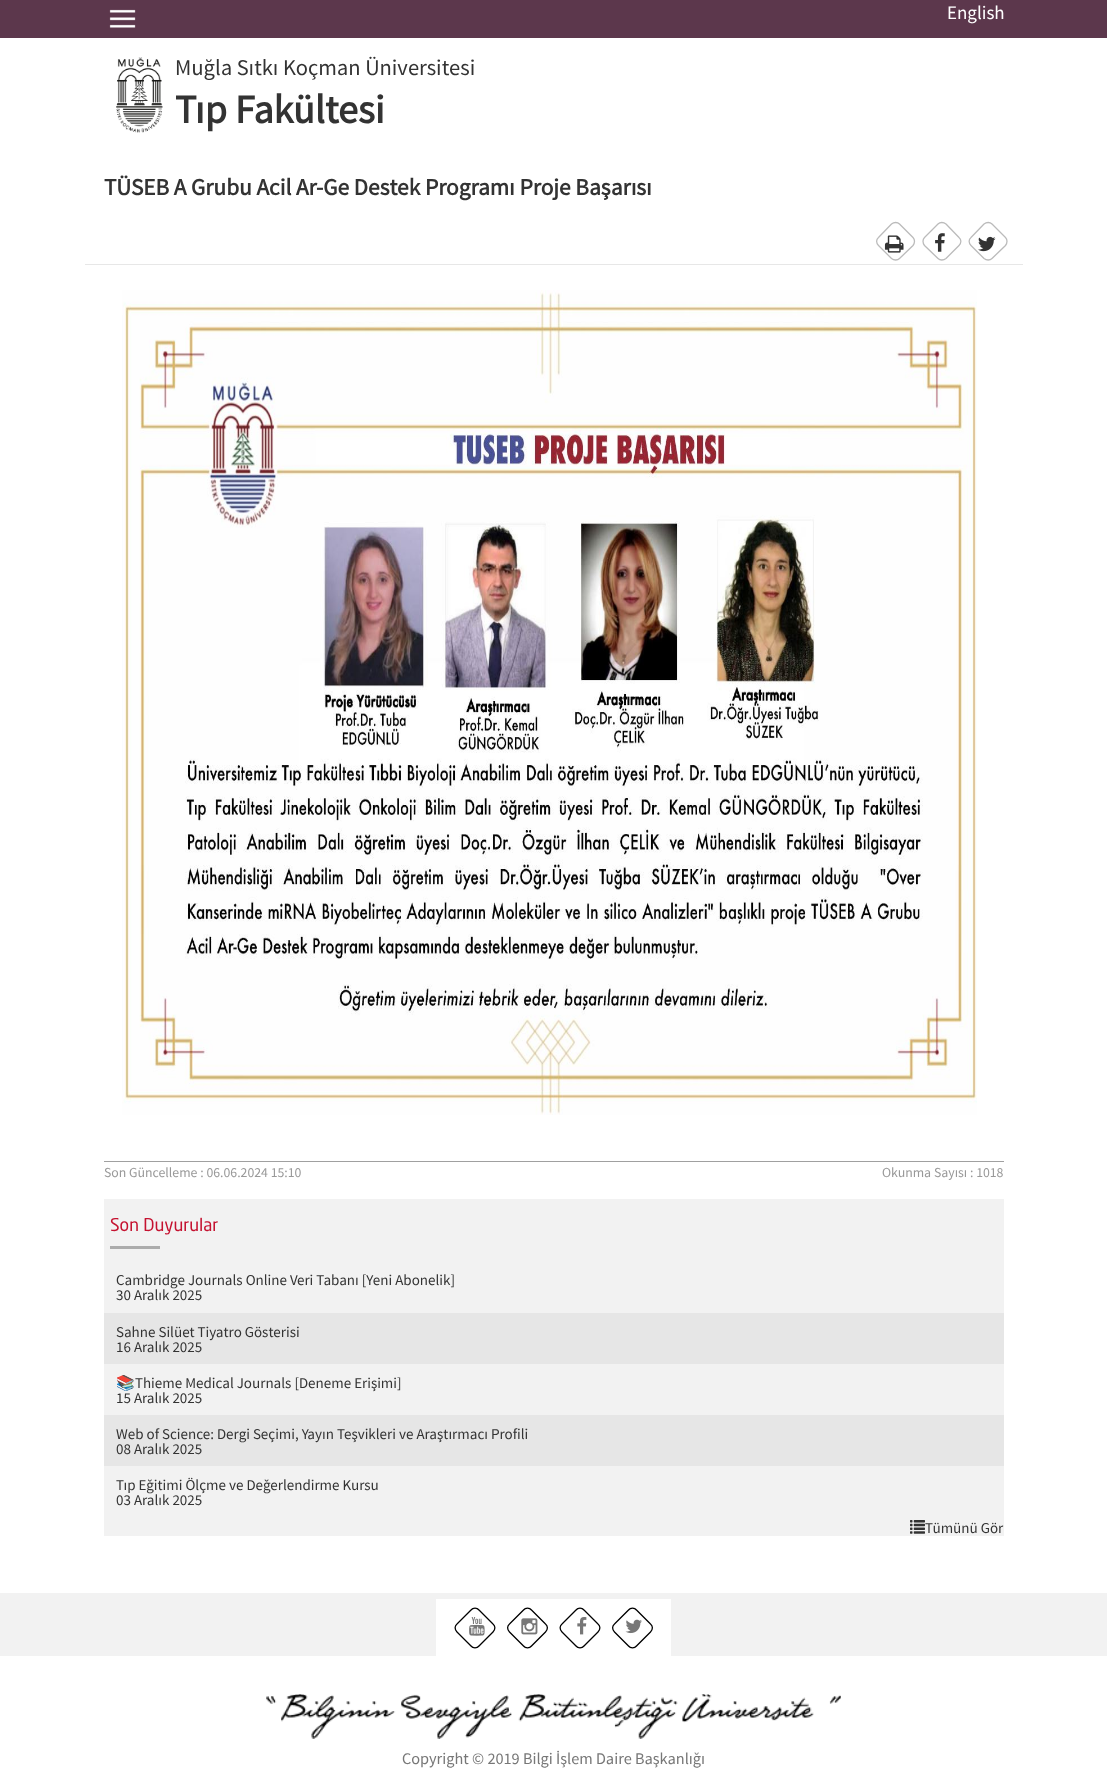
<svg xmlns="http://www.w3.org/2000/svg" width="1107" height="1775">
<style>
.a{font:19px Source Sans Pro;fill:#fff}
.b{font:22.5px Source Sans Pro;fill:#333}
.c{font:bold 40px Source Sans Pro;fill:#333}
.d{font:bold 23.3px Source Sans Pro;fill:#333}
.e{font:13.75px Source Sans Pro;fill:#999}
.f{font:17.5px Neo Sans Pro;fill:#c51230}
.g{font:15px Source Sans Pro;fill:#333}
.h{font:15px Noto Color Emoji;fill:#333}
.i{font:16.25px Source Sans Pro;fill:#777}
</style>
<rect width="100%" height="100%" fill="#fff"/>
<path fill="#5c374c" d="M0 0h1107v38H0z"/>
<image href="1.png" x="109" y="9" width="27" height="19"/>
<image href="2.png" x="116" y="57" width="47" height="76"/>
<path fill="#e7e7e7" d="M85 264h938v1H85z"/>
<path fill="none" stroke="#bbb" stroke-width="1.3" d="M899.5 224l13.5 13.5c2 2 2 5.5 0 8l-13.5 13c-2 2-5.5 2-8 0l-13-13c-2.5-2.5-2.5-6 0-8l13-13.5c2.5-2 6-2 8 0z"/>
<image href="3.png" x="884" y="235" width="20" height="18"/>
<path fill="none" stroke="#bbb" stroke-width="1.3" d="M946 224l13 13.5c2.5 2 2.5 5.5 0 8l-13 13c-2.5 2-6 2-8 0l-13.5-13c-2-2.5-2-6 0-8l13.5-13.5c2-2 5.5-2 8 0z"/>
<image href="4.png" x="935" y="233" width="10" height="19"/>
<path fill="none" stroke="#bbb" stroke-width="1.3" d="M992 224l13.5 13.5c2 2 2 5.5 0 8l-13.5 13c-2 2-5.5 2-8 0l-13-13c-2.5-2.5-2.5-6 0-8l13-13.5c2.5-2 6-2 8 0z"/>
<image href="5.png" x="978" y="236" width="18" height="16"/>
<image href="6.png" x="122" y="290" width="855" height="825"/>
<path fill="#a0a0a0" d="M104 1161h900v1H104z"/>
<path fill="#f2f2f2" d="M104 1199h900v337H104z"/>
<path fill="#acacac" d="M110 1246h50v3H110z"/>
<path fill="#e6e6e6" d="M104 1313h900v51H104z"/>
<path fill="#e6e6e6" d="M104 1415h900v51H104z"/>
<image href="7.png" x="910" y="1520" width="15" height="14"/>
<path fill="#f2f2f2" d="M0 1593h1107v63H0z"/>
<path fill="#fff" d="M436 1599h235v57H436z"/>
<path fill="none" stroke="#000" stroke-width="1.3" d="M479 1610l14 14c2.5 2 2.5 5.5 0 8l-14 14c-2 2.5-6 2.5-8 0l-14-14c-2.5-2.5-2.5-6 0-8l14-14c2-2.5 6-2.5 8 0z"/>
<image href="8.png" x="469" y="1617" width="16" height="19"/>
<path fill="none" stroke="#000" stroke-width="1.3" d="M531.5 1610l14 14c2.5 2 2.5 5.5 0 8l-14 14c-2 2.5-6 2.5-8 0l-14-14c-2.5-2.5-2.5-6 0-8l14-14c2-2.5 6-2.5 8 0z"/>
<image href="9.png" x="521" y="1618" width="17" height="17"/>
<path fill="none" stroke="#000" stroke-width="1.3" d="M584 1610l14 14c2.5 2 2.5 5.5 0 8l-14 14c-2 2.5-6 2.5-8 0l-14-14c-2.5-2.5-2.5-6 0-8l14-14c2-2.5 6-2.5 8 0z"/>
<image href="10.png" x="577" y="1617" width="10" height="18"/>
<path fill="none" stroke="#000" stroke-width="1.3" d="M636.5 1610l14 14c2.5 2 2.5 5.5 0 8l-14 14c-2 2.5-6 2.5-8 0l-14-14c-2.5-2.5-2.5-6 0-8l14-14c2-2.5 6-2.5 8 0z"/>
<image href="11.png" x="625" y="1619" width="17" height="15"/>
<image href="12.png" x="266" y="1694" width="575" height="45"/>
<text class="a" x="947" y="19">English</text>
<text class="b" x="175" y="75">Muğla Sıtkı Koçman Üniversitesi</text>
<text class="c" x="175" y="123">Tıp Fakültesi</text>
<text class="d" x="104" y="195">TÜSEB A Grubu Acil Ar-Ge Destek Programı Proje Başarısı</text>
<text class="e" x="104" y="1177">Son Güncelleme : 06.06.2024 15:10</text>
<text class="e" x="882" y="1177">Okunma Sayısı : 1018</text>
<text class="f" x="110" y="1231">Son Duyurular</text>
<text class="g" x="116" y="1285">Cambridge Journals Online Veri Tabanı [Yeni Abonelik]</text>
<text class="g" x="116" y="1300">30 Aralık 2025</text>
<text class="g" x="116" y="1337">Sahne Silüet Tiyatro Gösterisi</text>
<text class="g" x="116" y="1352">16 Aralık 2025</text>
<text class="h" x="116" y="1388">📚</text>
<text class="g" x="135" y="1388">Thieme Medical Journals [Deneme Erişimi]</text>
<text class="g" x="116" y="1403">15 Aralık 2025</text>
<text class="g" x="116" y="1439">Web of Science: Dergi Seçimi, Yayın Teşvikleri ve Araştırmacı Profili</text>
<text class="g" x="116" y="1454">08 Aralık 2025</text>
<text class="g" x="116" y="1490">Tıp Eğitimi Ölçme ve Değerlendirme Kursu</text>
<text class="g" x="116" y="1505">03 Aralık 2025</text>
<text class="g" x="925" y="1533">Tümünü Gör</text>
<text class="i" x="402" y="1764">Copyright © 2019 Bilgi İşlem Daire Başkanlığı</text>
</svg>
